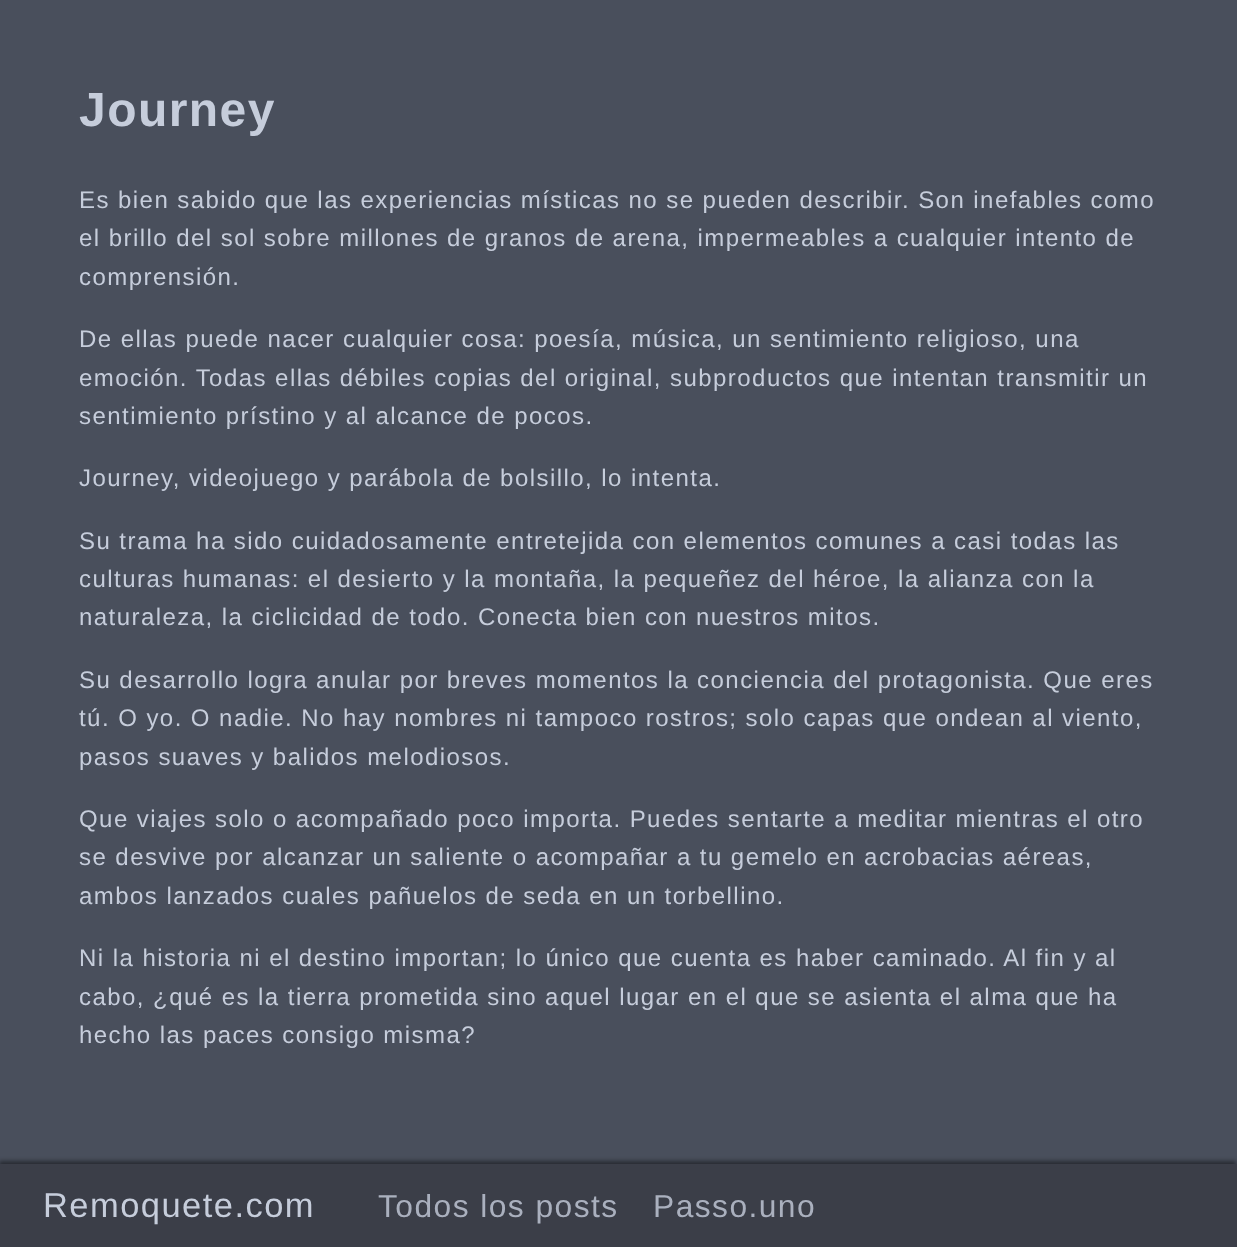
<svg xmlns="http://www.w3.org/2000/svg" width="1237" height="1247">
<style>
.a{font:bold 48px Liberation Sans;letter-spacing:1.45px;fill:#c6cddb}
.b{font:24px Liberation Sans;letter-spacing:1.45px;fill:#c6cddb}
.c{font:34.5px Liberation Sans;letter-spacing:1.45px;fill:#c6cddb}
.d{font:31.75px Liberation Sans;letter-spacing:1.45px;fill:#aab0be}
</style>
<rect width="100%" height="100%" fill="#494f5c"/>
<path fill="#00000073" filter="blur(2px)" d="M-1 1161h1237v84H-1z"/>
<path fill="#3b3e48" d="M0 1164h1237v83H0z"/>
<text class="a" x="79" y="126">Journey</text>
<text class="b" x="79" y="208">Es bien sabido que las experiencias místicas no se pueden describir. Son inefables como</text>
<text class="b" x="79" y="246">el brillo del sol sobre millones de granos de arena, impermeables a cualquier intento de</text>
<text class="b" x="79" y="285">comprensión.</text>
<text class="b" x="79" y="347">De ellas puede nacer cualquier cosa: poesía, música, un sentimiento religioso, una</text>
<text class="b" x="79" y="386">emoción. Todas ellas débiles copias del original, subproductos que intentan transmitir un</text>
<text class="b" x="79" y="424">sentimiento prístino y al alcance de pocos.</text>
<text class="b" x="79" y="486">Journey, videojuego y parábola de bolsillo, lo intenta.</text>
<text class="b" x="79" y="549">Su trama ha sido cuidadosamente entretejida con elementos comunes a casi todas las</text>
<text class="b" x="79" y="587">culturas humanas: el desierto y la montaña, la pequeñez del héroe, la alianza con la</text>
<text class="b" x="79" y="625">naturaleza, la ciclicidad de todo. Conecta bien con nuestros mitos.</text>
<text class="b" x="79" y="688">Su desarrollo logra anular por breves momentos la conciencia del protagonista. Que eres</text>
<text class="b" x="79" y="726">tú. O yo. O nadie. No hay nombres ni tampoco rostros; solo capas que ondean al viento,</text>
<text class="b" x="79" y="765">pasos suaves y balidos melodiosos.</text>
<text class="b" x="79" y="827">Que viajes solo o acompañado poco importa. Puedes sentarte a meditar mientras el otro</text>
<text class="b" x="79" y="865">se desvive por alcanzar un saliente o acompañar a tu gemelo en acrobacias aéreas,</text>
<text class="b" x="79" y="904">ambos lanzados cuales pañuelos de seda en un torbellino.</text>
<text class="b" x="79" y="966">Ni la historia ni el destino importan; lo único que cuenta es haber caminado. Al fin y al</text>
<text class="b" x="79" y="1005">cabo, ¿qué es la tierra prometida sino aquel lugar en el que se asienta el alma que ha</text>
<text class="b" x="79" y="1043">hecho las paces consigo misma?</text>
<text class="c" x="43" y="1217">Remoquete.com</text>
<text class="d" x="378" y="1217">Todos los posts</text>
<text class="d" x="653" y="1217">Passo.uno</text>
</svg>
